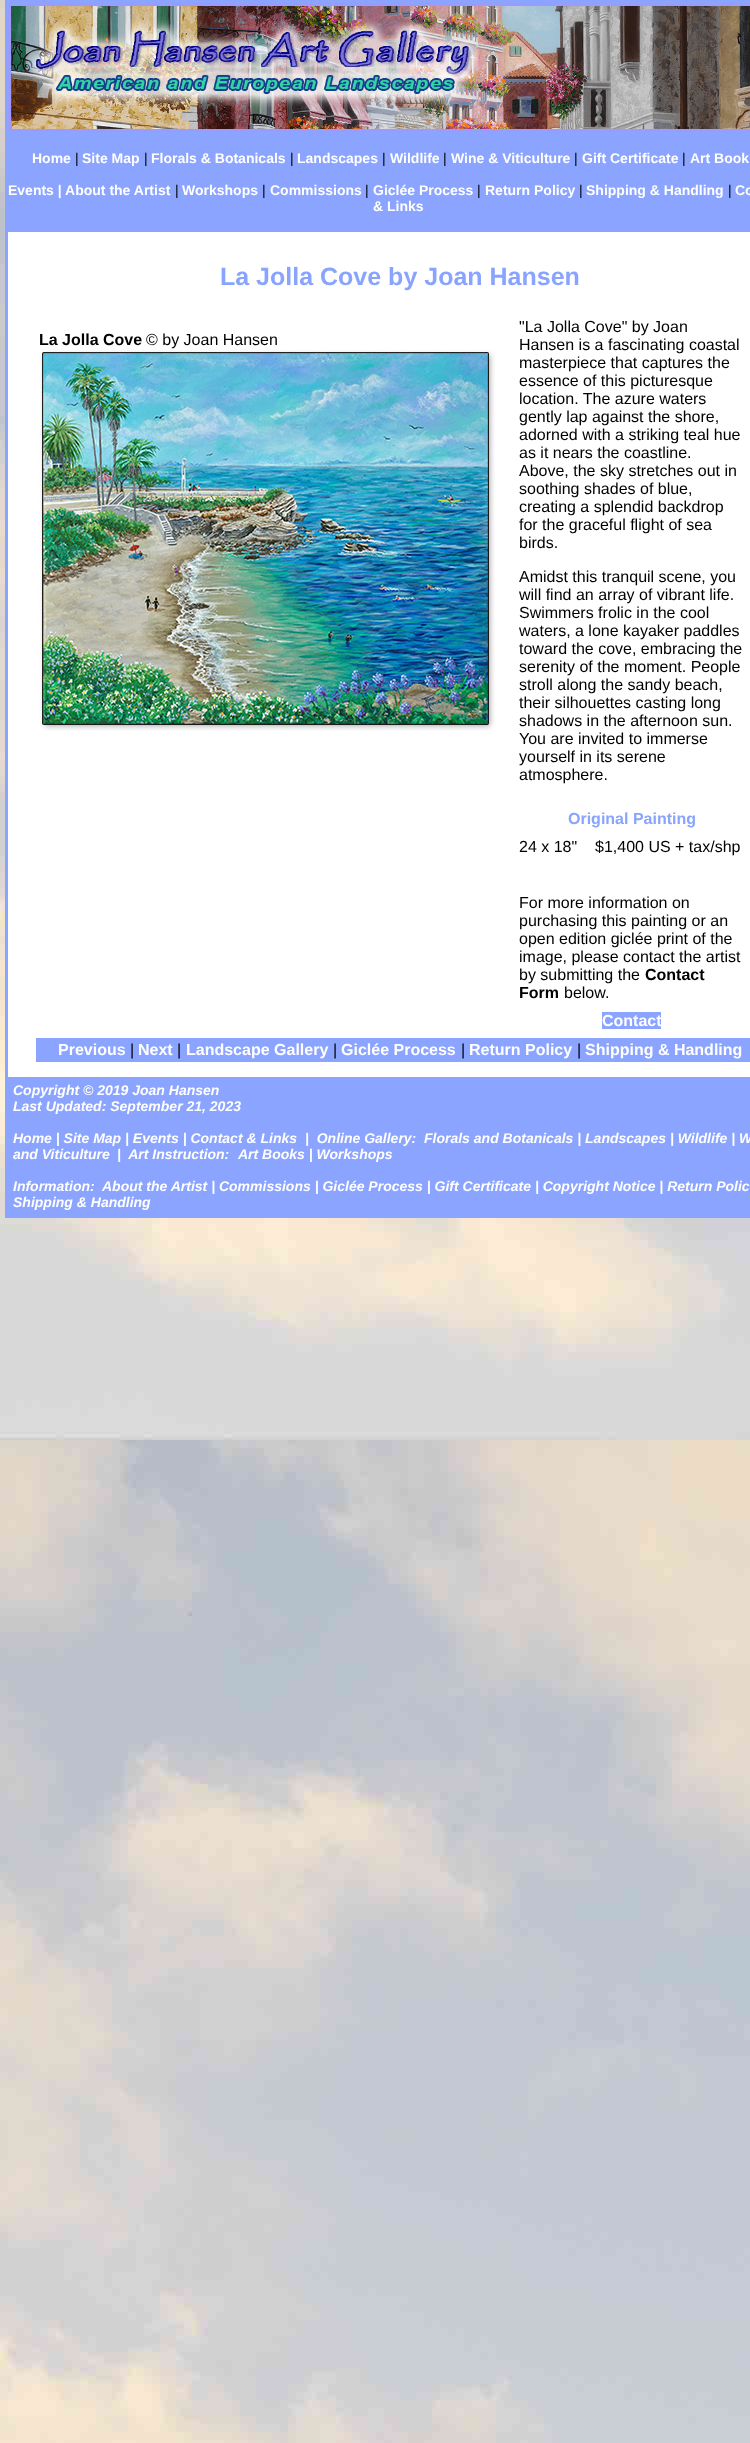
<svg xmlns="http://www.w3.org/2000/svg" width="750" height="2443">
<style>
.a{font:bold 14px Liberation Sans;fill:#fff}
.b{font:14px Liberation Sans;fill:#000}
.c{font:bold 25px Liberation Sans;fill:#88a4ff}
.d{font:bold 16px Liberation Sans;fill:#000}
.e{font:16px Liberation Sans;fill:#000}
.f{font:bold 16px Liberation Sans;fill:#88a4ff}
.g{font:bold 16px Liberation Sans;fill:#fff}
.h{font:italic bold 14px Liberation Sans;fill:#fff}
</style>
<rect width="100%" height="100%" fill="#fff"/>
<image href="1.png" x="0" y="0" width="750" height="2443"/>
<path fill="#fff" d="M8 232h742v845H8z"/>
<path fill="none" stroke="#8ba4ff" stroke-width="3" d="M6.5 1.5h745v1215H6.5z"/>
<path fill="#8ba4ff" d="M8 3h742v229H8z"/>
<image href="2.png" x="8" y="3" width="742" height="129"/>
<image href="3.png" x="39" y="349" width="456" height="382"/>
<path fill="#8ba4ff" d="M602 1012h59v17H602z"/>
<path fill="#8ba4ff" d="M36 1038h714v24H36z"/>
<path fill="#8ba4ff" d="M8 1077h742v138H8z"/>
<text class="a" x="32" y="163">Home</text>
<text class="b" x="75" y="163">|</text>
<text class="a" x="82" y="163">Site Map</text>
<text class="b" x="144" y="163">|</text>
<text class="a" x="151" y="163">Florals &amp; Botanicals</text>
<text class="b" x="290" y="163">|</text>
<text class="a" x="297" y="163">Landscapes</text>
<text class="b" x="382" y="163">|</text>
<text class="a" x="390" y="163">Wildlife</text>
<text class="b" x="443" y="163">|</text>
<text class="a" x="451" y="163">Wine &amp; Viticulture</text>
<text class="b" x="574" y="163">|</text>
<text class="a" x="582" y="163">Gift Certificate</text>
<text class="b" x="682" y="163">|</text>
<text class="a" x="690" y="163">Art Book</text>
<text class="a" x="8" y="195">Events | About the Artist</text>
<text class="b" x="175" y="195">|</text>
<text class="a" x="182" y="195">Workshops</text>
<text class="b" x="262" y="195">|</text>
<text class="a" x="270" y="195">Commissions</text>
<text class="b" x="365" y="195">|</text>
<text class="a" x="373" y="195">Giclée Process</text>
<text class="b" x="477" y="195">|</text>
<text class="a" x="485" y="195">Return Policy</text>
<text class="b" x="579" y="195">|</text>
<text class="a" x="586" y="195">Shipping &amp; Handling</text>
<text class="b" x="728" y="195">|</text>
<text class="a" x="735" y="195">Co</text>
<text class="a" x="373" y="211">&amp; Links</text>
<text class="c" x="220" y="285">La Jolla Cove by Joan Hansen</text>
<text class="d" x="39" y="345">La Jolla Cove</text>
<text class="e" x="146" y="345">© by Joan Hansen</text>
<text class="e" x="519" y="332">"La Jolla Cove" by Joan</text>
<text class="e" x="519" y="350">Hansen is a fascinating coastal</text>
<text class="e" x="519" y="368">masterpiece that captures the</text>
<text class="e" x="519" y="386">essence of this picturesque</text>
<text class="e" x="519" y="404">location. The azure waters</text>
<text class="e" x="519" y="422">gently lap against the shore,</text>
<text class="e" x="519" y="440">adorned with a striking teal hue</text>
<text class="e" x="519" y="458">as it nears the coastline.</text>
<text class="e" x="519" y="476">Above, the sky stretches out in</text>
<text class="e" x="519" y="494">soothing shades of blue,</text>
<text class="e" x="519" y="512">creating a splendid backdrop</text>
<text class="e" x="519" y="530">for the graceful flight of sea</text>
<text class="e" x="519" y="548">birds.</text>
<text class="e" x="519" y="582">Amidst this tranquil scene, you</text>
<text class="e" x="519" y="600">will find an array of vibrant life.</text>
<text class="e" x="519" y="618">Swimmers frolic in the cool</text>
<text class="e" x="519" y="636">waters, a lone kayaker paddles</text>
<text class="e" x="519" y="654">toward the cove, embracing the</text>
<text class="e" x="519" y="672">serenity of the moment. People</text>
<text class="e" x="519" y="690">stroll along the sandy beach,</text>
<text class="e" x="519" y="708">their silhouettes casting long</text>
<text class="e" x="519" y="726">shadows in the afternoon sun.</text>
<text class="e" x="519" y="744">You are invited to immerse</text>
<text class="e" x="519" y="762">yourself in its serene</text>
<text class="e" x="519" y="780">atmosphere.</text>
<text class="f" x="568" y="824">Original Painting</text>
<text class="e" x="519" y="852">24 x 18"</text>
<text class="e" x="595" y="852">$1,400 US + tax/shp</text>
<text class="e" x="519" y="908">For more information on</text>
<text class="e" x="519" y="926">purchasing this painting or an</text>
<text class="e" x="519" y="944">open edition giclée print of the</text>
<text class="e" x="519" y="962">image, please contact the artist</text>
<text class="e" x="519" y="980">by submitting the</text>
<text class="d" x="645" y="980">Contact</text>
<text class="d" x="519" y="998">Form</text>
<text class="e" x="564" y="998">below.</text>
<text class="g" x="602" y="1026">Contact</text>
<text class="g" x="58" y="1055">Previous</text>
<text class="e" x="130" y="1055">|</text>
<text class="g" x="138" y="1055">Next</text>
<text class="e" x="177" y="1055">|</text>
<text class="g" x="186" y="1055">Landscape Gallery</text>
<text class="e" x="333" y="1055">|</text>
<text class="g" x="341" y="1055">Giclée Process</text>
<text class="e" x="461" y="1055">|</text>
<text class="g" x="469" y="1055">Return Policy</text>
<text class="e" x="577" y="1055">|</text>
<text class="g" x="585" y="1055">Shipping &amp; Handling</text>
<text class="h" x="13" y="1095">Copyright © 2019 Joan Hansen</text>
<text class="h" x="13" y="1111">Last Updated: September 21, 2023</text>
<text class="h" x="13" y="1143">Home | Site Map | Events | Contact &amp; Links</text>
<text class="h" xml:space="preserve" x="305" y="1143">|  Online Gallery:</text>
<text class="h" x="424" y="1143">Florals and Botanicals | Landscapes | Wildlife | W</text>
<text class="h" x="13" y="1159">and Viticulture</text>
<text class="h" xml:space="preserve" x="117" y="1159">|  Art Instruction:</text>
<text class="h" x="238" y="1159">Art Books | Workshops</text>
<text class="h" x="13" y="1191">Information:</text>
<text class="h" x="102" y="1191">About the Artist | Commissions | Giclée Process | Gift Certificate | Copyright Notice | Return Polic</text>
<text class="h" x="13" y="1207">Shipping &amp; Handling</text>
</svg>
